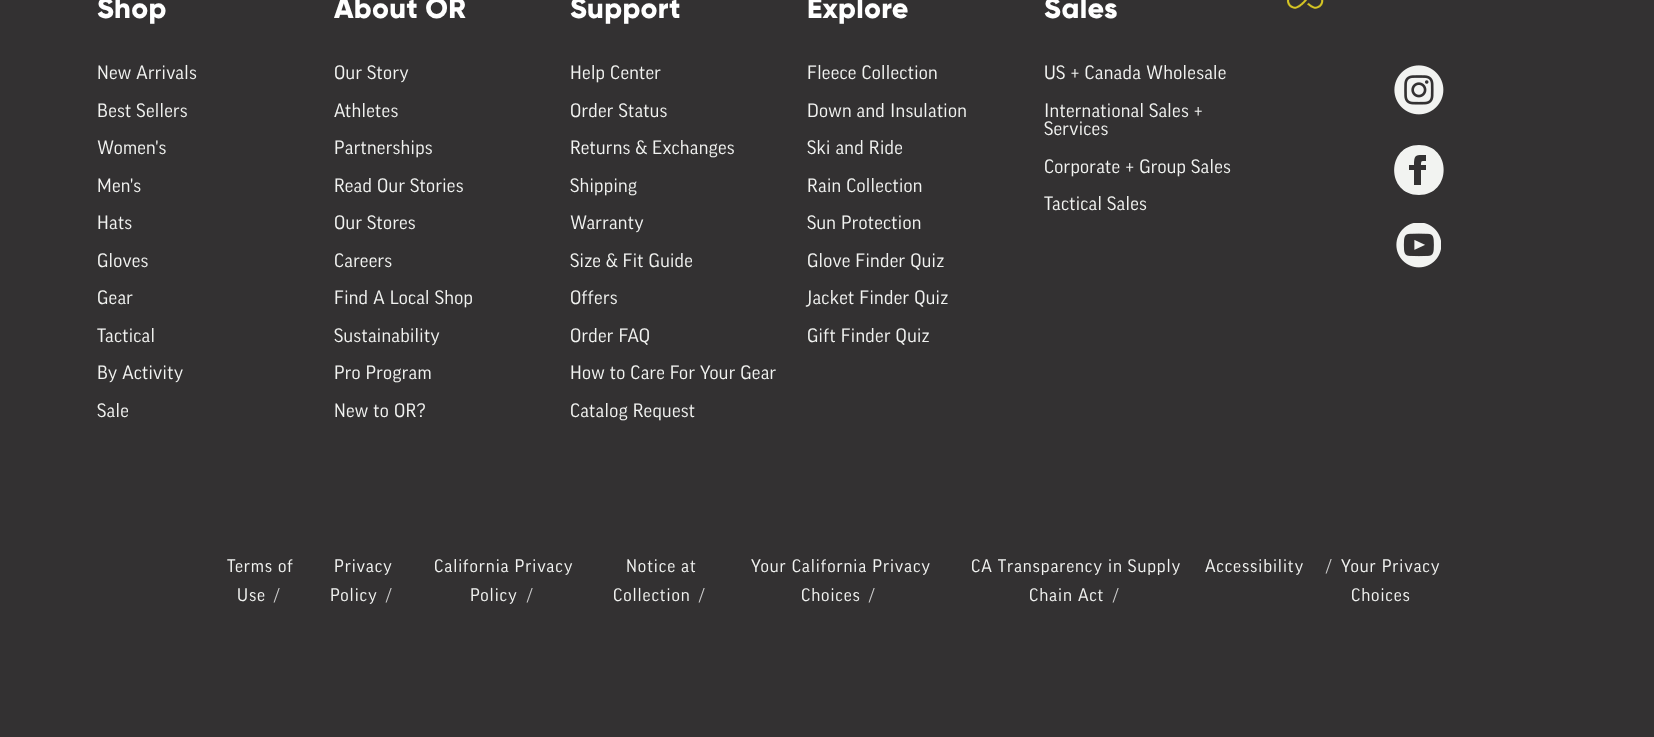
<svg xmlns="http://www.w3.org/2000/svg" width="1654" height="737">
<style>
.a{font:800 28.75px Gilroy;letter-spacing:0.3px;fill:#fff}
.b{font:18.75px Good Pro;letter-spacing:0.3px;fill:#f2f3f1}
.c{font:17.5px Good Pro;letter-spacing:0.9px;fill:#f2f3f1}
.d{font:17.5px Good Pro;letter-spacing:0.9px;fill:#ccc}
</style>
<rect width="100%" height="100%" fill="#333132"/>
<image href="1.png" x="1286" y="0" width="38" height="9"/>
<image href="2.png" x="1394" y="65" width="50" height="50"/>
<path fill="#f2f3f1" d="M1419 145c33 0 33 50 0 50c-33 0-33-50 0-50zm-5 20h-5v5h5v15h7v-15h5v-5h-5c0-5 1-4 5-4v-6c-10 0-12-1-12 10z"/>
<image href="3.png" x="1396" y="223" width="45" height="45"/>
<text class="a" x="97" y="18">Shop</text>
<text class="b" x="97" y="79">New Arrivals</text>
<text class="b" x="97" y="117">Best Sellers</text>
<text class="b" x="97" y="154">Women's</text>
<text class="b" x="97" y="192">Men's</text>
<text class="b" x="97" y="229">Hats</text>
<text class="b" x="97" y="267">Gloves</text>
<text class="b" x="97" y="304">Gear</text>
<text class="b" x="97" y="342">Tactical</text>
<text class="b" x="97" y="379">By Activity</text>
<text class="b" x="97" y="417">Sale</text>
<text class="a" x="334" y="18">About OR</text>
<text class="b" x="334" y="79">Our Story</text>
<text class="b" x="334" y="117">Athletes</text>
<text class="b" x="334" y="154">Partnerships</text>
<text class="b" x="334" y="192">Read Our Stories</text>
<text class="b" x="334" y="229">Our Stores</text>
<text class="b" x="334" y="267">Careers</text>
<text class="b" x="334" y="304">Find A Local Shop</text>
<text class="b" x="334" y="342">Sustainability</text>
<text class="b" x="334" y="379">Pro Program</text>
<text class="b" x="334" y="417">New to OR?</text>
<text class="a" x="570" y="18">Support</text>
<text class="b" x="570" y="79">Help Center</text>
<text class="b" x="570" y="117">Order Status</text>
<text class="b" x="570" y="154">Returns &amp; Exchanges</text>
<text class="b" x="570" y="192">Shipping</text>
<text class="b" x="570" y="229">Warranty</text>
<text class="b" x="570" y="267">Size &amp; Fit Guide</text>
<text class="b" x="570" y="304">Offers</text>
<text class="b" x="570" y="342">Order FAQ</text>
<text class="b" x="570" y="379">How to Care For Your Gear</text>
<text class="b" x="570" y="417">Catalog Request</text>
<text class="a" x="807" y="18">Explore</text>
<text class="b" x="807" y="79">Fleece Collection</text>
<text class="b" x="807" y="117">Down and Insulation</text>
<text class="b" x="807" y="154">Ski and Ride</text>
<text class="b" x="807" y="192">Rain Collection</text>
<text class="b" x="807" y="229">Sun Protection</text>
<text class="b" x="807" y="267">Glove Finder Quiz</text>
<text class="b" x="807" y="304">Jacket Finder Quiz</text>
<text class="b" x="807" y="342">Gift Finder Quiz</text>
<text class="a" x="1044" y="18">Sales</text>
<text class="b" x="1044" y="79">US + Canada Wholesale</text>
<text class="b" x="1044" y="117">International Sales +</text>
<text class="b" x="1044" y="135">Services</text>
<text class="b" x="1044" y="173">Corporate + Group Sales</text>
<text class="b" x="1044" y="210">Tactical Sales</text>
<text class="c" x="227" y="572">Terms of</text>
<text class="c" x="237" y="601">Use</text>
<text class="d" x="274" y="601">/</text>
<text class="c" x="334" y="572">Privacy</text>
<text class="c" x="330" y="601">Policy</text>
<text class="d" x="386" y="601">/</text>
<text class="c" x="434" y="572">California Privacy</text>
<text class="c" x="470" y="601">Policy</text>
<text class="d" x="527" y="601">/</text>
<text class="c" x="626" y="572">Notice at</text>
<text class="c" x="613" y="601">Collection</text>
<text class="d" x="699" y="601">/</text>
<text class="c" x="751" y="572">Your California Privacy</text>
<text class="c" x="801" y="601">Choices</text>
<text class="d" x="869" y="601">/</text>
<text class="c" x="971" y="572">CA Transparency in Supply</text>
<text class="c" x="1029" y="601">Chain Act</text>
<text class="d" x="1113" y="601">/</text>
<text class="c" x="1205" y="572">Accessibility</text>
<text class="d" x="1326" y="572">/</text>
<text class="c" x="1341" y="572">Your Privacy</text>
<text class="c" x="1351" y="601">Choices</text>
</svg>
